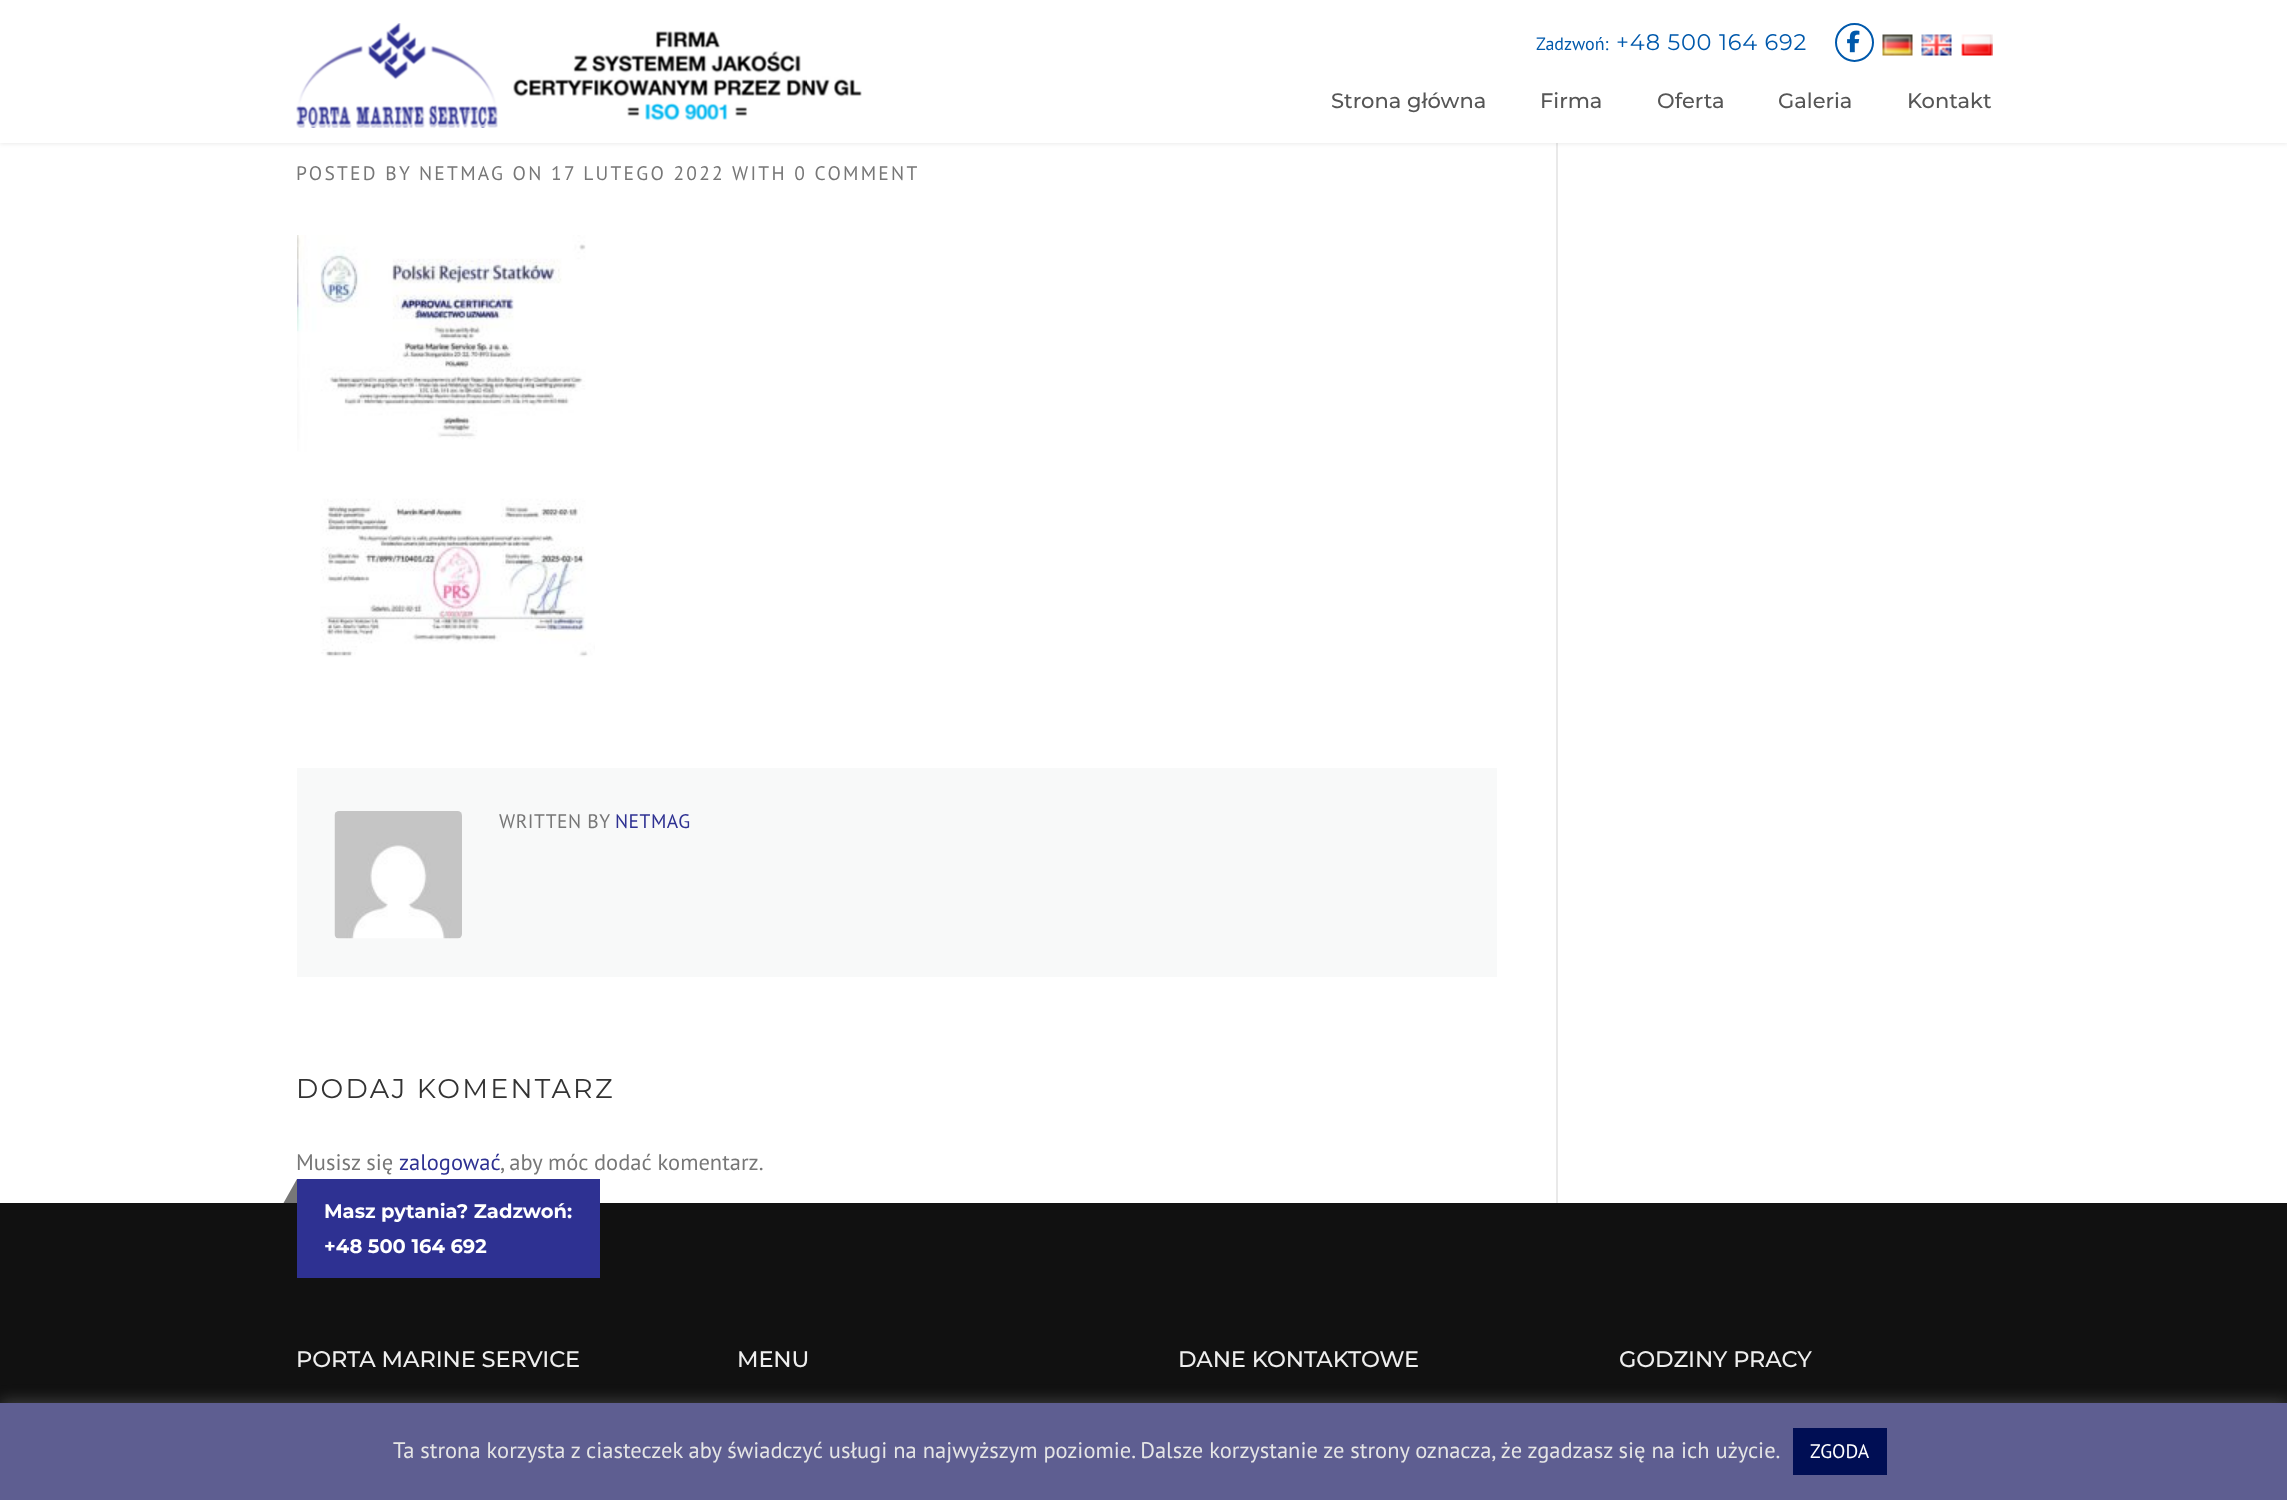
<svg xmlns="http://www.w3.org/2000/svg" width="2287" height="1500">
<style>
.a{font:18px PT Sans;fill:#0059ac}
.b{font:22.5px Montserrat;letter-spacing:0.75px;fill:#0059ac}
.c{font:500 21px Montserrat;fill:#565656}
.d{font:19.5px PT Sans;letter-spacing:2.25px;fill:#777}
.e{font:19.5px PT Sans;letter-spacing:0.5px;fill:#777}
.f{font:19.5px PT Sans;letter-spacing:0.5px;fill:#2e3192}
.g{font:27px Montserrat;letter-spacing:2.25px;fill:#333}
.h{font:22.5px PT Sans;fill:#777}
.i{font:22.5px PT Sans;fill:#2e3192}
.j{font:bold 19.5px Montserrat;fill:#fff}
.k{font:500 22.5px Montserrat;letter-spacing:-0.1px;fill:#eee}
.l{font:22.5px PT Sans;fill:#e5e5e5}
.m{font:19.5px PT Sans;fill:#fff}
</style>
<rect width="100%" height="100%" fill="#fff"/>
<path fill="#e9e9e9" d="M1556 143h2v1060H1556z"/>
<path fill="#00000014" filter="blur(2px)" d="M0 2h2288v142H0z"/>
<path fill="#fff" d="M0 0h2287v143H0z"/>
<image href="1.png" x="296" y="23" width="566" height="105"/>
<circle fill="none" stroke="#0059ac" stroke-width="2" cx="1854.5" cy="42.5" r="18.5"/>
<image href="2.png" x="1847" y="30" width="13" height="23"/>
<image href="3.png" x="1882" y="34" width="31" height="22"/>
<image href="4.png" x="1921" y="34" width="31" height="22"/>
<image href="5.png" x="1961" y="34" width="32" height="22"/>
<image href="6.png" x="297" y="235" width="298" height="422"/>
<path fill="#f8f9f9" d="M297 768h1200v209H297z"/>
<image href="7.png" x="334" y="811" width="128" height="128"/>
<path fill="#111" d="M0 1203h2287v200H0z"/>
<path fill="#2e3192" d="M297 1179h303v99H297z"/>
<path fill="#777" d="M297 1179v24h-13.5z"/>
<path fill="#acabab4d" filter="blur(7.5px)" d="M0 1401h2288v98H0z"/>
<path fill="#5e5e91" d="M0 1403h2287v97H0z"/>
<path fill="#000e54" d="M1793 1428h94v47H1793z"/>
<text class="a" x="1536" y="50">Zadzwoń:</text>
<text class="b" x="1616" y="50">+48 500 164 692</text>
<text class="c" x="1331" y="108">Strona główna</text>
<text class="c" x="1540" y="108">Firma</text>
<text class="c" x="1657" y="108">Oferta</text>
<text class="c" x="1778" y="108">Galeria</text>
<text class="c" x="1907" y="108">Kontakt</text>
<text class="d" x="296" y="180">POSTED BY NETMAG ON 17 LUTEGO 2022</text>
<text class="d" x="732" y="180">WITH 0 COMMENT</text>
<text class="e" x="499" y="828">WRITTEN BY</text>
<text class="f" x="615" y="828">NETMAG</text>
<text class="g" x="296" y="1098">DODAJ KOMENTARZ</text>
<text class="h" x="296" y="1170">Musisz się</text>
<text class="i" x="399" y="1170">zalogować</text>
<text class="h" x="500" y="1170">, aby móc dodać komentarz.</text>
<text class="j" x="324" y="1218">Masz pytania? Zadzwoń:</text>
<text class="j" x="324" y="1253">+48 500 164 692</text>
<text class="k" x="296" y="1367">PORTA MARINE SERVICE</text>
<text class="k" x="737" y="1367">MENU</text>
<text class="k" x="1178" y="1367">DANE KONTAKTOWE</text>
<text class="k" x="1619" y="1367">GODZINY PRACY</text>
<text class="l" x="393" y="1458">Ta strona korzysta z ciasteczek aby świadczyć usługi na najwyższym poziomie. Dalsze korzystanie ze strony oznacza, że zgadzasz się na ich użycie.</text>
<text class="m" x="1810" y="1458">ZGODA</text>
</svg>
